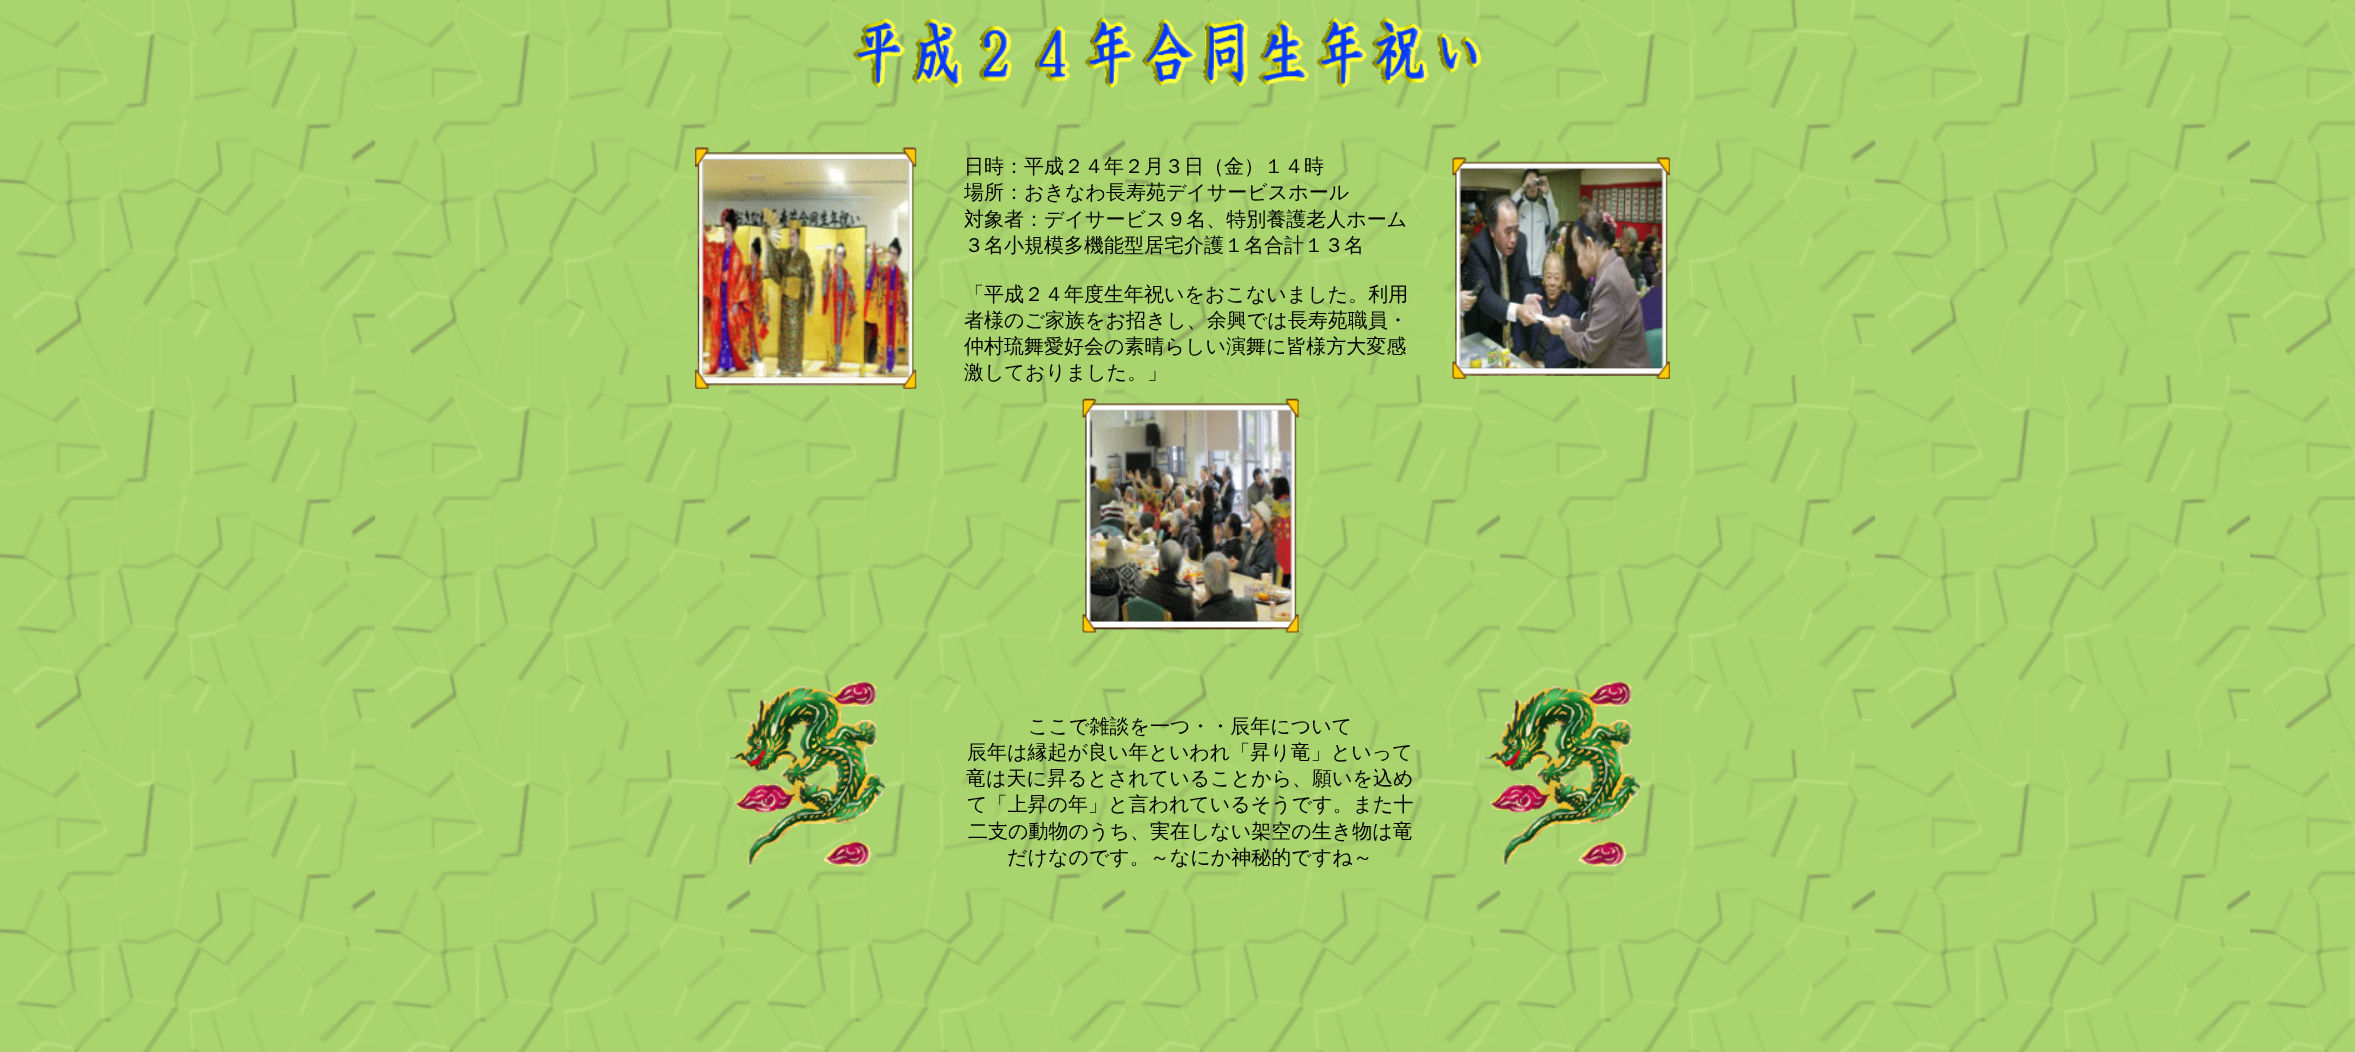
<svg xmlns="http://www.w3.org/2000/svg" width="2355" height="1052">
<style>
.a{font:500 20px WenQuanYi Zen Hei;fill:#000}
</style>
<rect width="100%" height="100%" fill="#fff"/>
<image href="1.png" x="0" y="0" width="2355" height="1052"/>
<image href="2.png" x="852" y="17" width="630" height="71"/>
<image href="3.png" x="695" y="147" width="222" height="242"/>
<image href="4.png" x="1452" y="157" width="218" height="222"/>
<image href="5.png" x="1082" y="398" width="217" height="235"/>
<image href="6.png" x="727" y="681" width="158" height="186"/>
<image href="7.png" x="1482" y="681" width="158" height="186"/>
<text class="a" x="964" y="173">日時：平成２４年２月３日（金）１４時</text>
<text class="a" x="964" y="199">場所：おきなわ長寿苑デイサービスホール</text>
<text class="a" x="964" y="226">対象者：デイサービス９名、特別養護老人ホーム</text>
<text class="a" x="964" y="252">３名小規模多機能型居宅介護１名合計１３名</text>
<text class="a" x="964" y="301">「平成２４年度生年祝いをおこないました。利用</text>
<text class="a" x="964" y="327">者様のご家族をお招きし、余興では長寿苑職員・</text>
<text class="a" x="964" y="353">仲村琉舞愛好会の素晴らしい演舞に皆様方大変感</text>
<text class="a" x="964" y="379">激しておりました。」</text>
<text class="a" x="1028" y="733">ここで雑談を一つ・・辰年について</text>
<text class="a" x="967" y="759">辰年は縁起が良い年といわれ「昇り竜」といって</text>
<text class="a" x="966" y="785">竜は天に昇るとされていることから、願いを込め</text>
<text class="a" x="967" y="811">て「上昇の年」と言われているそうです。また十</text>
<text class="a" x="968" y="838">二支の動物のうち、実在しない架空の生き物は竜</text>
<text class="a" x="1007" y="864">だけなのです。～なにか神秘的ですね～</text>
</svg>
